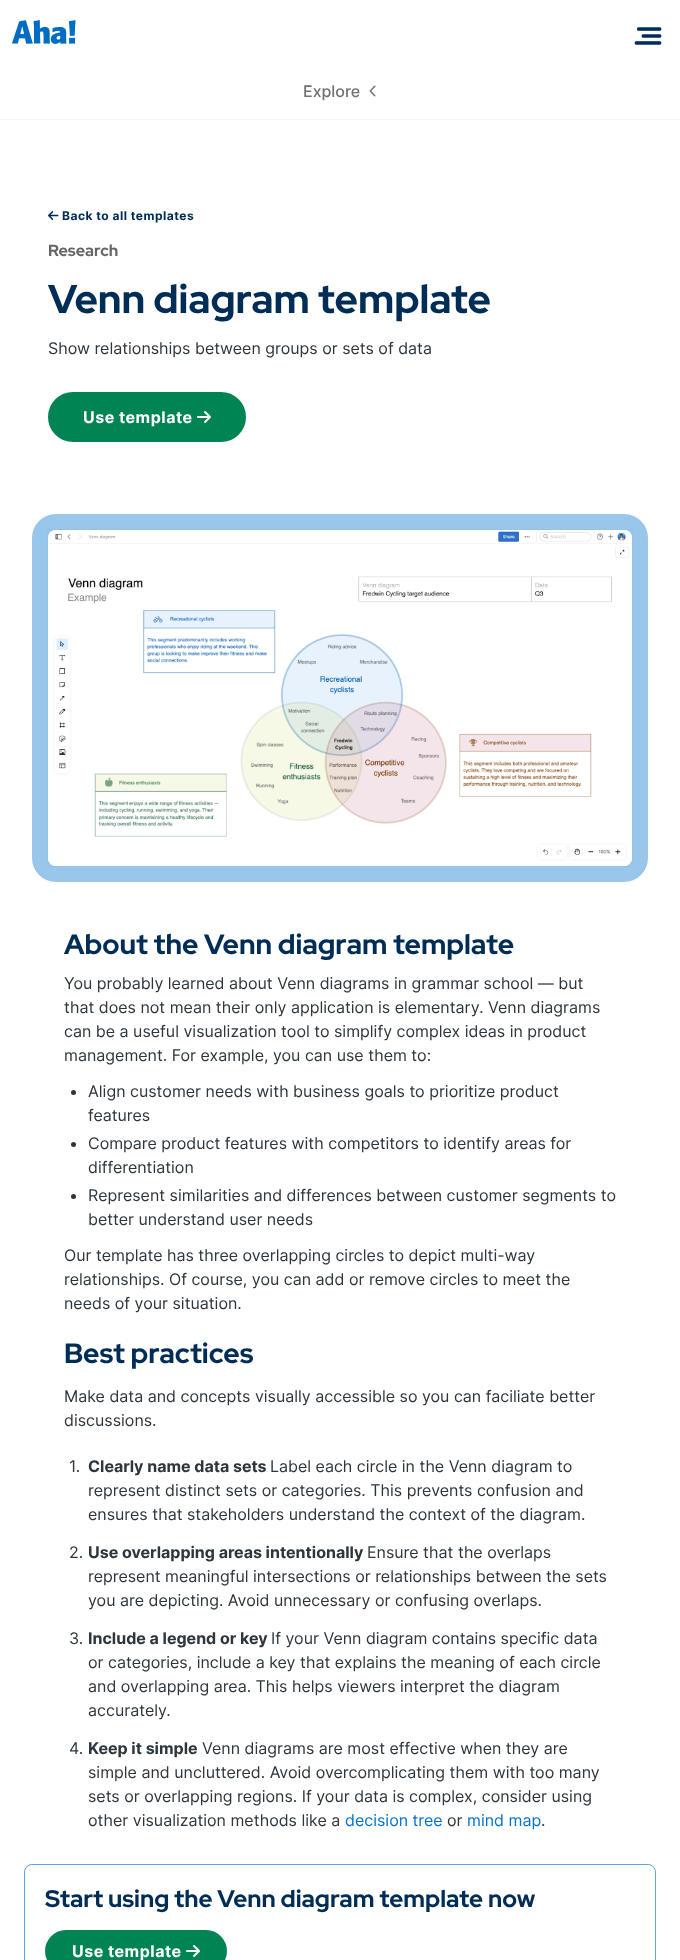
<svg xmlns="http://www.w3.org/2000/svg" width="680" height="1960">
<style>
.a{font:500 16px Inter;fill:#727272}
.b{font:bold 12px Inter;letter-spacing:0.5px;fill:#002d56}
.c{font:800 16px Red Hat Display;fill:#666}
.d{font:bold 40px Red Hat Display;fill:#002d56}
.e{font:16px Inter;fill:#2d363d}
.f{font:bold 16px Inter;letter-spacing:0.5px;fill:#fff}
.g{font:bold 28px Red Hat Display;fill:#002d56}
.h{font:bold 16px Inter;fill:#2d363d}
.i{font:16px Inter;fill:#0073cf}
.j{font:bold 24px Red Hat Display;fill:#002d56}
</style>
<rect width="100%" height="100%" fill="#fff"/>
<image href="1.png" x="12" y="20" width="64" height="24"/>
<image href="2.png" x="634" y="27" width="28" height="18"/>
<path fill="#f7f7f7" d="M0 119h680v1H0z"/>
<image href="3.png" x="369" y="85" width="7" height="12"/>
<image href="4.png" x="48" y="211" width="11" height="9"/>
<rect fill="#018454" stroke="#018454" stroke-width="3" x="49.5" y="393.5" width="195" height="47" rx="23.5"/>
<image href="5.png" x="197" y="411" width="14" height="12"/>
<path fill="none" stroke="#f7f7f7" d="M47.5 529.5h585v337H47.5z"/>
<rect fill="none" stroke="#0073cf66" stroke-width="16" x="40" y="522" width="600" height="352" rx="16"/>
<image href="6.png" x="48" y="530" width="584" height="336"/>
<circle fill="#2d363d" cx="73.5" cy="1092.5" r="2.5"/>
<circle fill="#2d363d" cx="73.5" cy="1144.5" r="2.5"/>
<circle fill="#2d363d" cx="73.5" cy="1196.5" r="2.5"/>
<rect fill="none" stroke="#5ca5e0" x="24.5" y="1864.5" width="631" height="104" rx="7.5"/>
<rect fill="#018454" stroke="#018454" stroke-width="3" x="46.5" y="1931.5" width="179" height="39" rx="19.5"/>
<image href="5.png" x="186" y="1945" width="14" height="12"/>
<text class="a" x="303" y="97">Explore</text>
<text class="b" x="62" y="220">Back to all templates</text>
<text class="c" x="48" y="256">Research</text>
<text class="d" x="48" y="313">Venn diagram template</text>
<text class="e" x="48" y="354">Show relationships between groups or sets of data</text>
<text class="f" x="83" y="423">Use template</text>
<text class="g" x="64" y="954">About the Venn diagram template</text>
<text class="e" x="64" y="989">You probably learned about Venn diagrams in grammar school — but</text>
<text class="e" x="64" y="1013">that does not mean their only application is elementary. Venn diagrams</text>
<text class="e" x="64" y="1037">can be a useful visualization tool to simplify complex ideas in product</text>
<text class="e" x="64" y="1061">management. For example, you can use them to:</text>
<text class="e" x="88" y="1097">Align customer needs with business goals to prioritize product</text>
<text class="e" x="88" y="1121">features</text>
<text class="e" x="88" y="1149">Compare product features with competitors to identify areas for</text>
<text class="e" x="88" y="1173">differentiation</text>
<text class="e" x="88" y="1201">Represent similarities and differences between customer segments to</text>
<text class="e" x="88" y="1225">better understand user needs</text>
<text class="e" x="64" y="1261">Our template has three overlapping circles to depict multi-way</text>
<text class="e" x="64" y="1285">relationships. Of course, you can add or remove circles to meet the</text>
<text class="e" x="64" y="1309">needs of your situation.</text>
<text class="g" x="64" y="1363">Best practices</text>
<text class="e" x="64" y="1402">Make data and concepts visually accessible so you can faciliate better</text>
<text class="e" x="64" y="1426">discussions.</text>
<text class="e" x="69" y="1472">1.</text>
<text class="h" x="88" y="1472">Clearly name data sets</text>
<text class="e" x="270" y="1472">Label each circle in the Venn diagram to</text>
<text class="e" x="88" y="1496">represent distinct sets or categories. This prevents confusion and</text>
<text class="e" x="88" y="1520">ensures that stakeholders understand the context of the diagram.</text>
<text class="e" x="69" y="1558">2.</text>
<text class="h" x="88" y="1558">Use overlapping areas intentionally</text>
<text class="e" x="367" y="1558">Ensure that the overlaps</text>
<text class="e" x="88" y="1582">represent meaningful intersections or relationships between the sets</text>
<text class="e" x="88" y="1606">you are depicting. Avoid unnecessary or confusing overlaps.</text>
<text class="e" x="69" y="1644">3.</text>
<text class="h" x="88" y="1644">Include a legend or key</text>
<text class="e" x="271" y="1644">If your Venn diagram contains specific data</text>
<text class="e" x="88" y="1668">or categories, include a key that explains the meaning of each circle</text>
<text class="e" x="88" y="1692">and overlapping area. This helps viewers interpret the diagram</text>
<text class="e" x="88" y="1716">accurately.</text>
<text class="e" x="69" y="1754">4.</text>
<text class="h" x="88" y="1754">Keep it simple</text>
<text class="e" x="202" y="1754">Venn diagrams are most effective when they are</text>
<text class="e" x="88" y="1778">simple and uncluttered. Avoid overcomplicating them with too many</text>
<text class="e" x="88" y="1802">sets or overlapping regions. If your data is complex, consider using</text>
<text class="e" x="88" y="1826">other visualization methods like a</text>
<text class="i" x="345" y="1826">decision tree</text>
<text class="e" x="447" y="1826">or</text>
<text class="i" x="467" y="1826">mind map</text>
<text class="e" x="541" y="1826">.</text>
<text class="j" x="45" y="1907">Start using the Venn diagram template now</text>
<text class="f" x="72" y="1957">Use template</text>
</svg>
